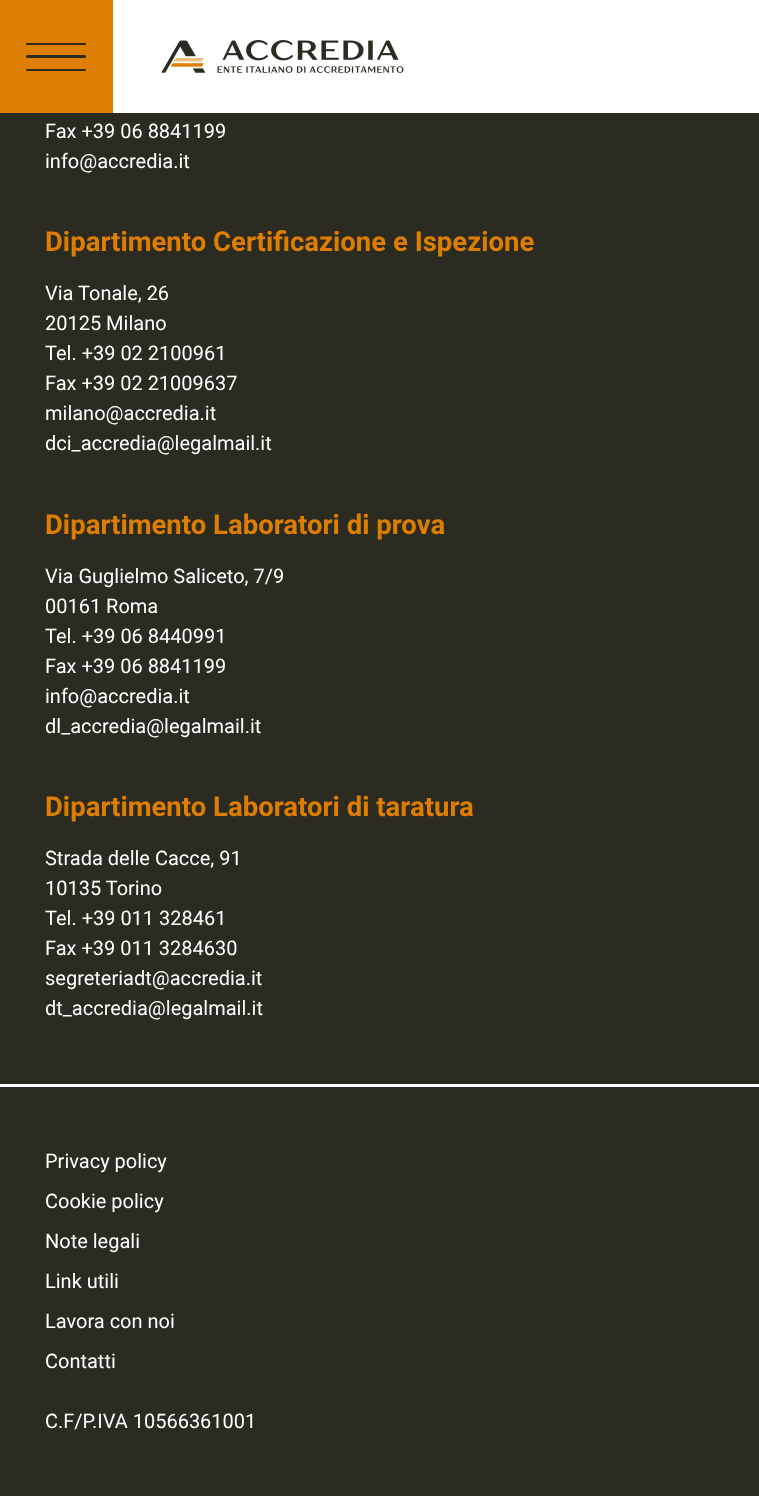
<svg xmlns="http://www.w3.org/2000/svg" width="759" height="1496">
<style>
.a{font:20px Roboto;fill:#fff}
.b{font:bold 27.5px Roboto;fill:#de7e00}
</style>
<rect width="100%" height="100%" fill="#2b2b21"/>
<path fill="#fff" d="M113 0h646v113H113z"/>
<path fill="#de7e00" d="M0 0h113v113H0z"/>
<rect fill="#2b2b21" x="26" y="43" width="60" height="2" rx="1"/>
<rect fill="#2b2b21" x="26" y="55" width="60" height="3" rx="1.5"/>
<rect fill="#2b2b21" x="26" y="69" width="60" height="2" rx="1"/>
<image href="1.png" x="161" y="40" width="243" height="33"/>
<path fill="#fff" d="M0 1084h759v3H0z"/>
<text class="a" x="45" y="138">Fax +39 06 8841199</text>
<text class="a" x="45" y="168">info@accredia.it</text>
<text class="b" x="45" y="251">Dipartimento Certificazione e Ispezione</text>
<text class="a" x="45" y="300">Via Tonale, 26</text>
<text class="a" x="45" y="330">20125 Milano</text>
<text class="a" x="45" y="360">Tel. +39 02 2100961</text>
<text class="a" x="45" y="390">Fax +39 02 21009637</text>
<text class="a" x="45" y="420">milano@accredia.it</text>
<text class="a" x="45" y="450">dci_accredia@legalmail.it</text>
<text class="b" x="45" y="534">Dipartimento Laboratori di prova</text>
<text class="a" x="45" y="583">Via Guglielmo Saliceto, 7/9</text>
<text class="a" x="45" y="613">00161 Roma</text>
<text class="a" x="45" y="643">Tel. +39 06 8440991</text>
<text class="a" x="45" y="673">Fax +39 06 8841199</text>
<text class="a" x="45" y="703">info@accredia.it</text>
<text class="a" x="45" y="733">dl_accredia@legalmail.it</text>
<text class="b" x="45" y="816">Dipartimento Laboratori di taratura</text>
<text class="a" x="45" y="865">Strada delle Cacce, 91</text>
<text class="a" x="45" y="895">10135 Torino</text>
<text class="a" x="45" y="925">Tel. +39 011 328461</text>
<text class="a" x="45" y="955">Fax +39 011 3284630</text>
<text class="a" x="45" y="985">segreteriadt@accredia.it</text>
<text class="a" x="45" y="1015">dt_accredia@legalmail.it</text>
<text class="a" x="45" y="1168">Privacy policy</text>
<text class="a" x="45" y="1208">Cookie policy</text>
<text class="a" x="45" y="1248">Note legali</text>
<text class="a" x="45" y="1288">Link utili</text>
<text class="a" x="45" y="1328">Lavora con noi</text>
<text class="a" x="45" y="1368">Contatti</text>
<text class="a" x="45" y="1428">C.F/P.IVA 10566361001</text>
</svg>
